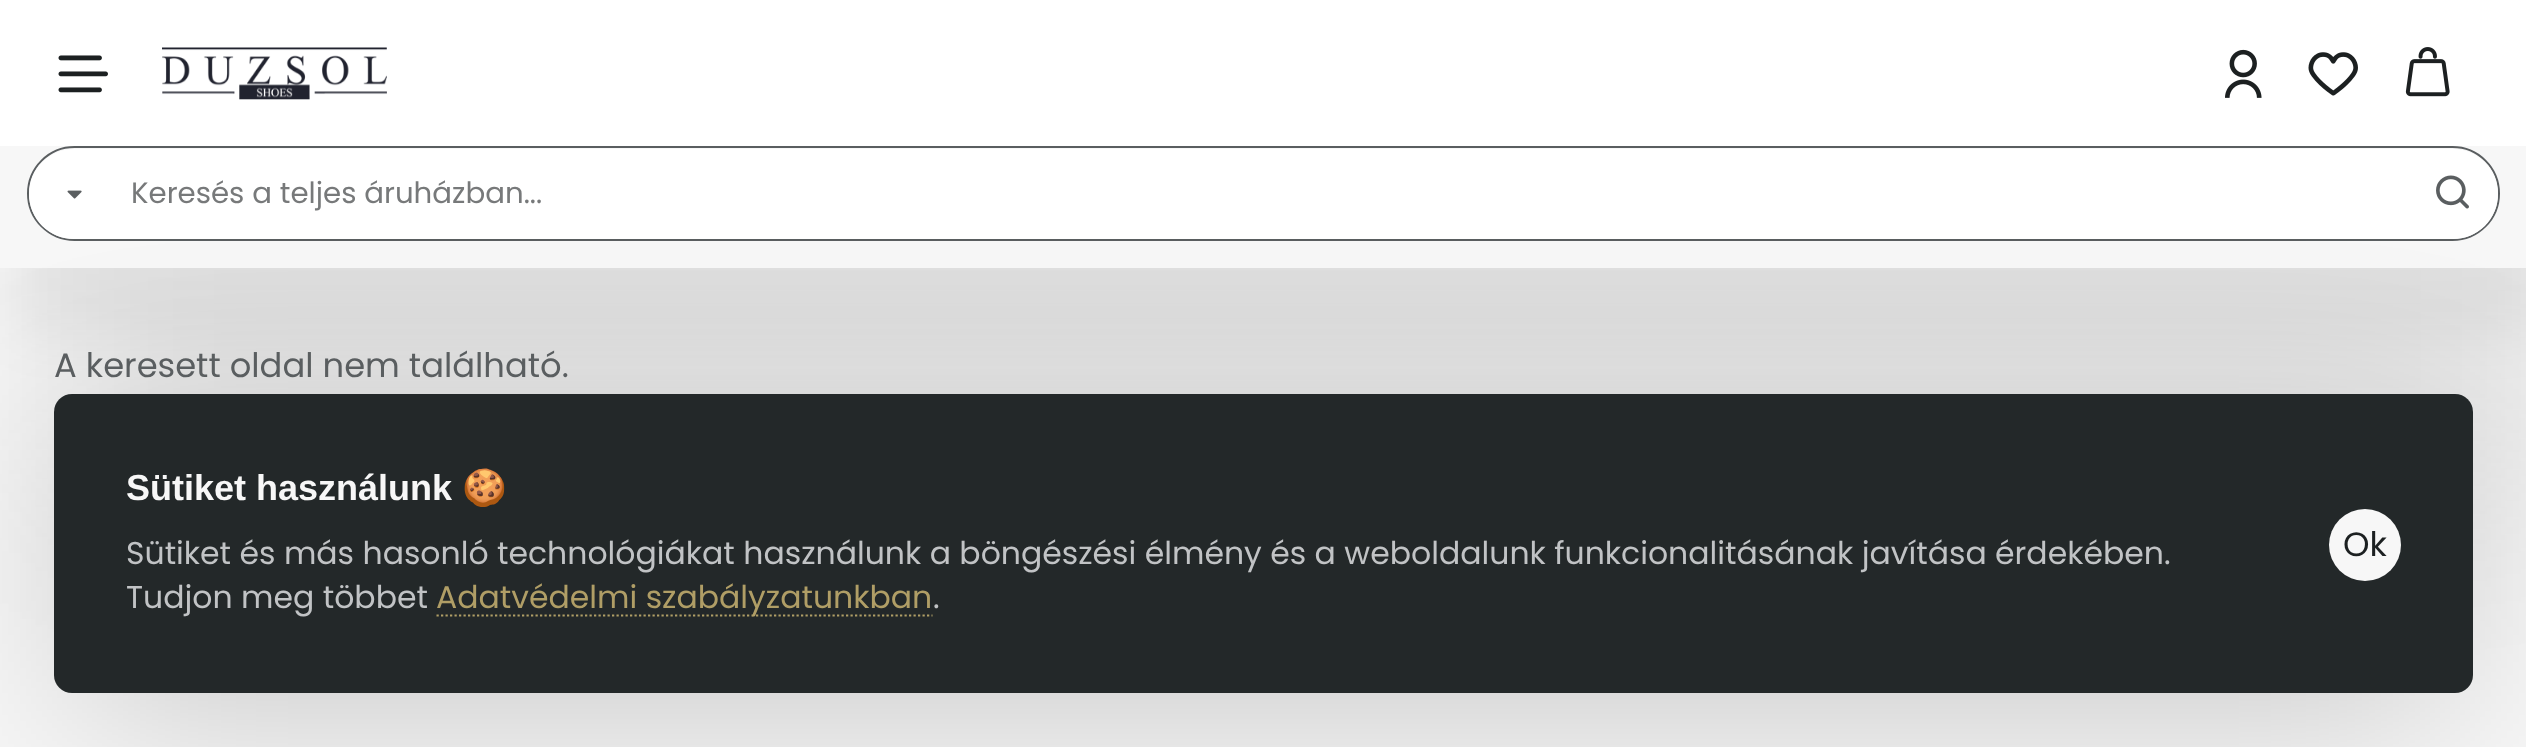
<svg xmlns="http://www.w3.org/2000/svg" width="2526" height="747">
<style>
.a{font:29.25px Poppins;fill:#77797a}
.b{font:33.75px Poppins;fill:#5a5e60}
.c{font:bold 36px Liberation Sans;fill:#f7f7f7}
.d{font:bold 36px Noto Color Emoji;fill:#f7f7f7}
.e{font:31.5px Poppins;fill:#c1c3c5}
.f{font:31.5px Poppins;fill:#b09e66}
.g{font:33.75px Poppins;fill:#1c2021}
</style>
<rect width="100%" height="100%" fill="#f7f7f7"/>
<path fill="#00000012" filter="blur(90px)" d="M54 225h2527v268H54z"/>
<path fill="#0000000d" filter="blur(27px)" d="M16 68h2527v267H16z"/>
<path fill="#fff" d="M0 0h2526v146H0z"/>
<image href="1.png" x="58" y="55" width="50" height="38"/>
<image href="2.png" x="162" y="47" width="225" height="53"/>
<image href="3.png" x="2225" y="49" width="37" height="49"/>
<image href="4.png" x="2308" y="52" width="50" height="44"/>
<image href="5.png" x="2405" y="47" width="45" height="50"/>
<path fill="#f7f7f7" d="M0 146h2526v122H0z"/>
<rect fill="none" stroke="#5a5e60" stroke-width="2" x="28" y="147" width="2471" height="93" rx="46.5"/>
<path fill="#fff" d="M74 149h30v90h-30c-25 0-45-20-45-45c0-25 20-45 45-45z"/>
<image href="6.png" x="67" y="190" width="15" height="9"/>
<path fill="#fff" d="M104 149h2304v90H104z"/>
<path fill="#fff" d="M2408 149h45c25 0 45 20 45 45c0 25-20 45-45 45h-45z"/>
<image href="7.png" x="2436" y="175" width="33" height="34"/>
<path fill="#00000033" filter="blur(101px)" d="M77 450h2373v254H77z"/>
<rect fill="#232829" x="54" y="394" width="2419" height="299" rx="18"/>
<path fill="none" stroke="#b09e66" stroke-width="2.2" stroke-dasharray="2.25 2.25" d="M436.5 615.5h496"/>
<circle fill="#f7f7f7" cx="2365" cy="545" r="36"/>
<text class="a" x="131" y="203">Keresés a teljes áruházban...</text>
<text class="b" x="54" y="377">A keresett oldal nem található.</text>
<text class="c" x="126" y="500">Sütiket használunk</text>
<text class="d" x="462" y="500">🍪</text>
<text class="e" x="126" y="564">Sütiket és más hasonló technológiákat használunk a böngészési élmény és a weboldalunk funkcionalitásának javítása érdekében.</text>
<text class="e" x="126" y="608">Tudjon meg többet</text>
<text class="f" x="436" y="608">Adatvédelmi szabályzatunkban</text>
<text class="e" x="933" y="608">.</text>
<text class="g" x="2343" y="556">Ok</text>
</svg>
